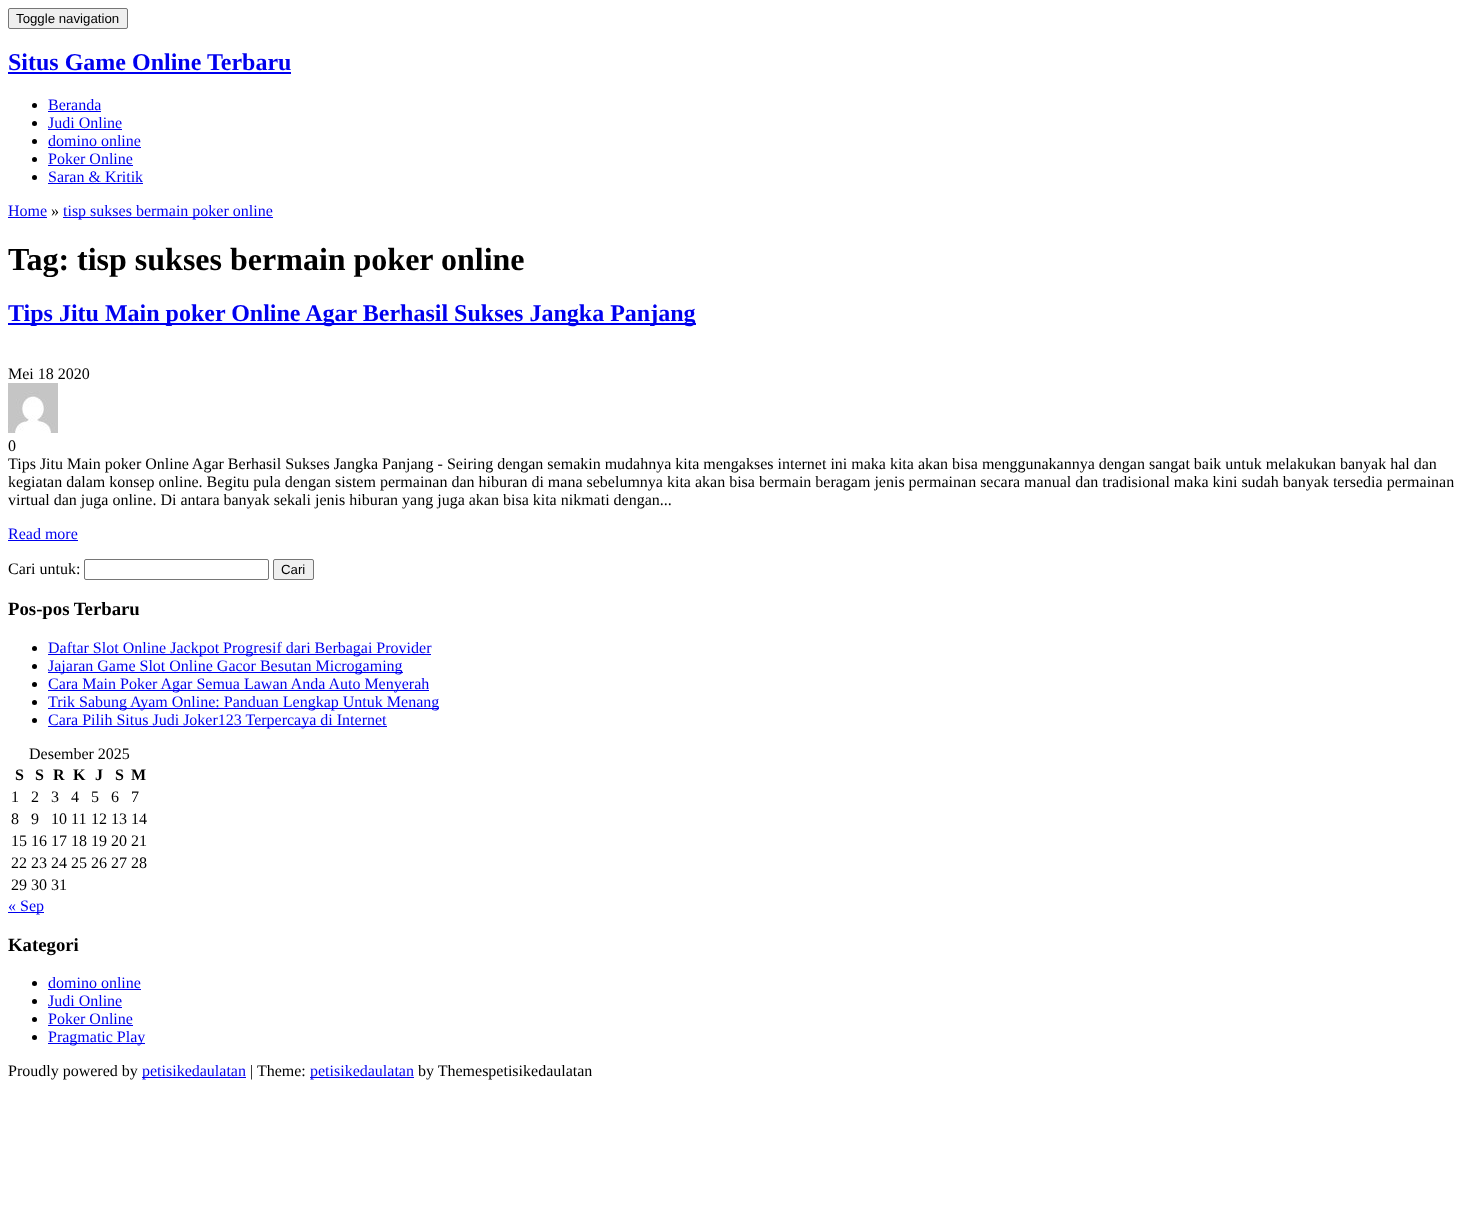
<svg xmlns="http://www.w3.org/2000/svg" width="1463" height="1218">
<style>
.a{font:13.25px Liberation Sans;fill:#000}
.b{font:bold 24px Liberation Serif;fill:#00e}
.c{font:16px Liberation Serif;fill:#00e}
.d{font:16px Liberation Serif;fill:#000}
.e{font:bold 32px Liberation Serif;fill:#000}
.f{font:bold 18.75px Liberation Serif;fill:#000}
.g{font:bold 16px Liberation Serif;fill:#000}
</style>
<rect width="100%" height="100%" fill="#fff"/>
<rect fill="#efefef" stroke="#767676" x="8.5" y="8.5" width="119" height="20" rx="1.5"/>
<path fill="#00e" d="M8 72h283v2H8z"/>
<circle fill="#000" cx="34.5" cy="105.5" r="2.5"/>
<path fill="#00e" d="M48 111h53v1H48z"/>
<circle fill="#000" cx="34.5" cy="123.5" r="2.5"/>
<path fill="#00e" d="M48 129h74v1H48z"/>
<circle fill="#000" cx="34.5" cy="141.5" r="2.5"/>
<path fill="#00e" d="M48 147h93v1H48z"/>
<circle fill="#000" cx="34.5" cy="159.5" r="2.5"/>
<path fill="#00e" d="M48 165h85v1H48z"/>
<circle fill="#000" cx="34.5" cy="177.5" r="2.5"/>
<path fill="#00e" d="M48 183h95v1H48z"/>
<path fill="#00e" d="M8 217h39v1H8z"/>
<path fill="#00e" d="M63 217h210v1H63z"/>
<path fill="#00e" d="M8 323h688v2H8z"/>
<image href="1.png" x="8" y="383" width="50" height="50"/>
<path fill="#00e" d="M8 540h70v1H8z"/>
<rect fill="none" stroke="#767676" x="84.5" y="559.5" width="184" height="20" rx="1.5"/>
<rect fill="#efefef" stroke="#767676" x="273.5" y="559.5" width="40" height="20" rx="1.5"/>
<circle fill="#000" cx="34.5" cy="648.5" r="2.5"/>
<path fill="#00e" d="M48 654h383v1H48z"/>
<circle fill="#000" cx="34.5" cy="666.5" r="2.5"/>
<path fill="#00e" d="M48 672h355v1H48z"/>
<circle fill="#000" cx="34.5" cy="684.5" r="2.5"/>
<path fill="#00e" d="M48 690h381v1H48z"/>
<circle fill="#000" cx="34.5" cy="702.5" r="2.5"/>
<path fill="#00e" d="M48 708h391v1H48z"/>
<circle fill="#000" cx="34.5" cy="720.5" r="2.5"/>
<path fill="#00e" d="M48 726h339v1H48z"/>
<path fill="#00e" d="M8 912h36v1H8z"/>
<circle fill="#000" cx="34.5" cy="983.5" r="2.5"/>
<path fill="#00e" d="M48 989h93v1H48z"/>
<circle fill="#000" cx="34.5" cy="1001.5" r="2.5"/>
<path fill="#00e" d="M48 1007h74v1H48z"/>
<circle fill="#000" cx="34.5" cy="1019.5" r="2.5"/>
<path fill="#00e" d="M48 1025h85v1H48z"/>
<circle fill="#000" cx="34.5" cy="1037.5" r="2.5"/>
<path fill="#00e" d="M48 1043h97v1H48z"/>
<path fill="#00e" d="M142 1077h104v1H142z"/>
<path fill="#00e" d="M310 1077h104v1H310z"/>
<text class="a" x="16" y="23">Toggle navigation</text>
<text class="b" x="8" y="70">Situs Game Online Terbaru</text>
<text class="c" x="48" y="110">Beranda</text>
<text class="c" x="48" y="128">Judi Online</text>
<text class="c" x="48" y="146">domino online</text>
<text class="c" x="48" y="164">Poker Online</text>
<text class="c" x="48" y="182">Saran &amp; Kritik</text>
<text class="c" x="8" y="216">Home</text>
<text class="d" x="51" y="216">»</text>
<text class="c" x="63" y="216">tisp sukses bermain poker online</text>
<text class="e" x="8" y="270">Tag: tisp sukses bermain poker online</text>
<text class="b" x="8" y="321">Tips Jitu Main poker Online Agar Berhasil Sukses Jangka Panjang</text>
<text class="d" x="8" y="379">Mei 18 2020</text>
<text class="d" x="8" y="451">0</text>
<text class="d" x="8" y="469">Tips Jitu Main poker Online Agar Berhasil Sukses Jangka Panjang - Seiring dengan semakin mudahnya kita mengakses internet ini maka kita akan bisa menggunakannya dengan sangat baik untuk melakukan banyak hal dan</text>
<text class="d" x="8" y="487">kegiatan dalam konsep online. Begitu pula dengan sistem permainan dan hiburan di mana sebelumnya kita akan bisa bermain beragam jenis permainan secara manual dan tradisional maka kini sudah banyak tersedia permainan</text>
<text class="d" x="8" y="505">virtual dan juga online. Di antara banyak sekali jenis hiburan yang juga akan bisa kita nikmati dengan...</text>
<text class="c" x="8" y="539">Read more</text>
<text class="d" x="8" y="574">Cari untuk:</text>
<text class="a" x="281" y="574">Cari</text>
<text class="f" x="8" y="615">Pos-pos Terbaru</text>
<text class="c" x="48" y="653">Daftar Slot Online Jackpot Progresif dari Berbagai Provider</text>
<text class="c" x="48" y="671">Jajaran Game Slot Online Gacor Besutan Microgaming</text>
<text class="c" x="48" y="689">Cara Main Poker Agar Semua Lawan Anda Auto Menyerah</text>
<text class="c" x="48" y="707">Trik Sabung Ayam Online: Panduan Lengkap Untuk Menang</text>
<text class="c" x="48" y="725">Cara Pilih Situs Judi Joker123 Terpercaya di Internet</text>
<text class="d" x="29" y="759">Desember 2025</text>
<text class="g" x="15" y="780">S</text>
<text class="g" x="35" y="780">S</text>
<text class="g" x="53" y="780">R</text>
<text class="g" x="73" y="780">K</text>
<text class="g" x="95" y="780">J</text>
<text class="g" x="115" y="780">S</text>
<text class="g" x="131" y="780">M</text>
<text class="d" x="11" y="802">1</text>
<text class="d" x="31" y="802">2</text>
<text class="d" x="51" y="802">3</text>
<text class="d" x="71" y="802">4</text>
<text class="d" x="91" y="802">5</text>
<text class="d" x="111" y="802">6</text>
<text class="d" x="131" y="802">7</text>
<text class="d" x="11" y="824">8</text>
<text class="d" x="31" y="824">9</text>
<text class="d" x="51" y="824">10 11</text>
<text class="d" x="91" y="824">12 13 14</text>
<text class="d" x="11" y="846">15 16 17 18 19 20 21</text>
<text class="d" x="11" y="868">22 23 24 25 26 27 28</text>
<text class="d" x="11" y="890">29 30 31</text>
<text class="c" x="8" y="911">« Sep</text>
<text class="f" x="8" y="951">Kategori</text>
<text class="c" x="48" y="988">domino online</text>
<text class="c" x="48" y="1006">Judi Online</text>
<text class="c" x="48" y="1024">Poker Online</text>
<text class="c" x="48" y="1042">Pragmatic Play</text>
<text class="d" x="8" y="1076">Proudly powered by</text>
<text class="c" x="142" y="1076">petisikedaulatan</text>
<text class="d" x="250" y="1076">| Theme:</text>
<text class="c" x="310" y="1076">petisikedaulatan</text>
<text class="d" x="418" y="1076">by Themespetisikedaulatan</text>
</svg>
